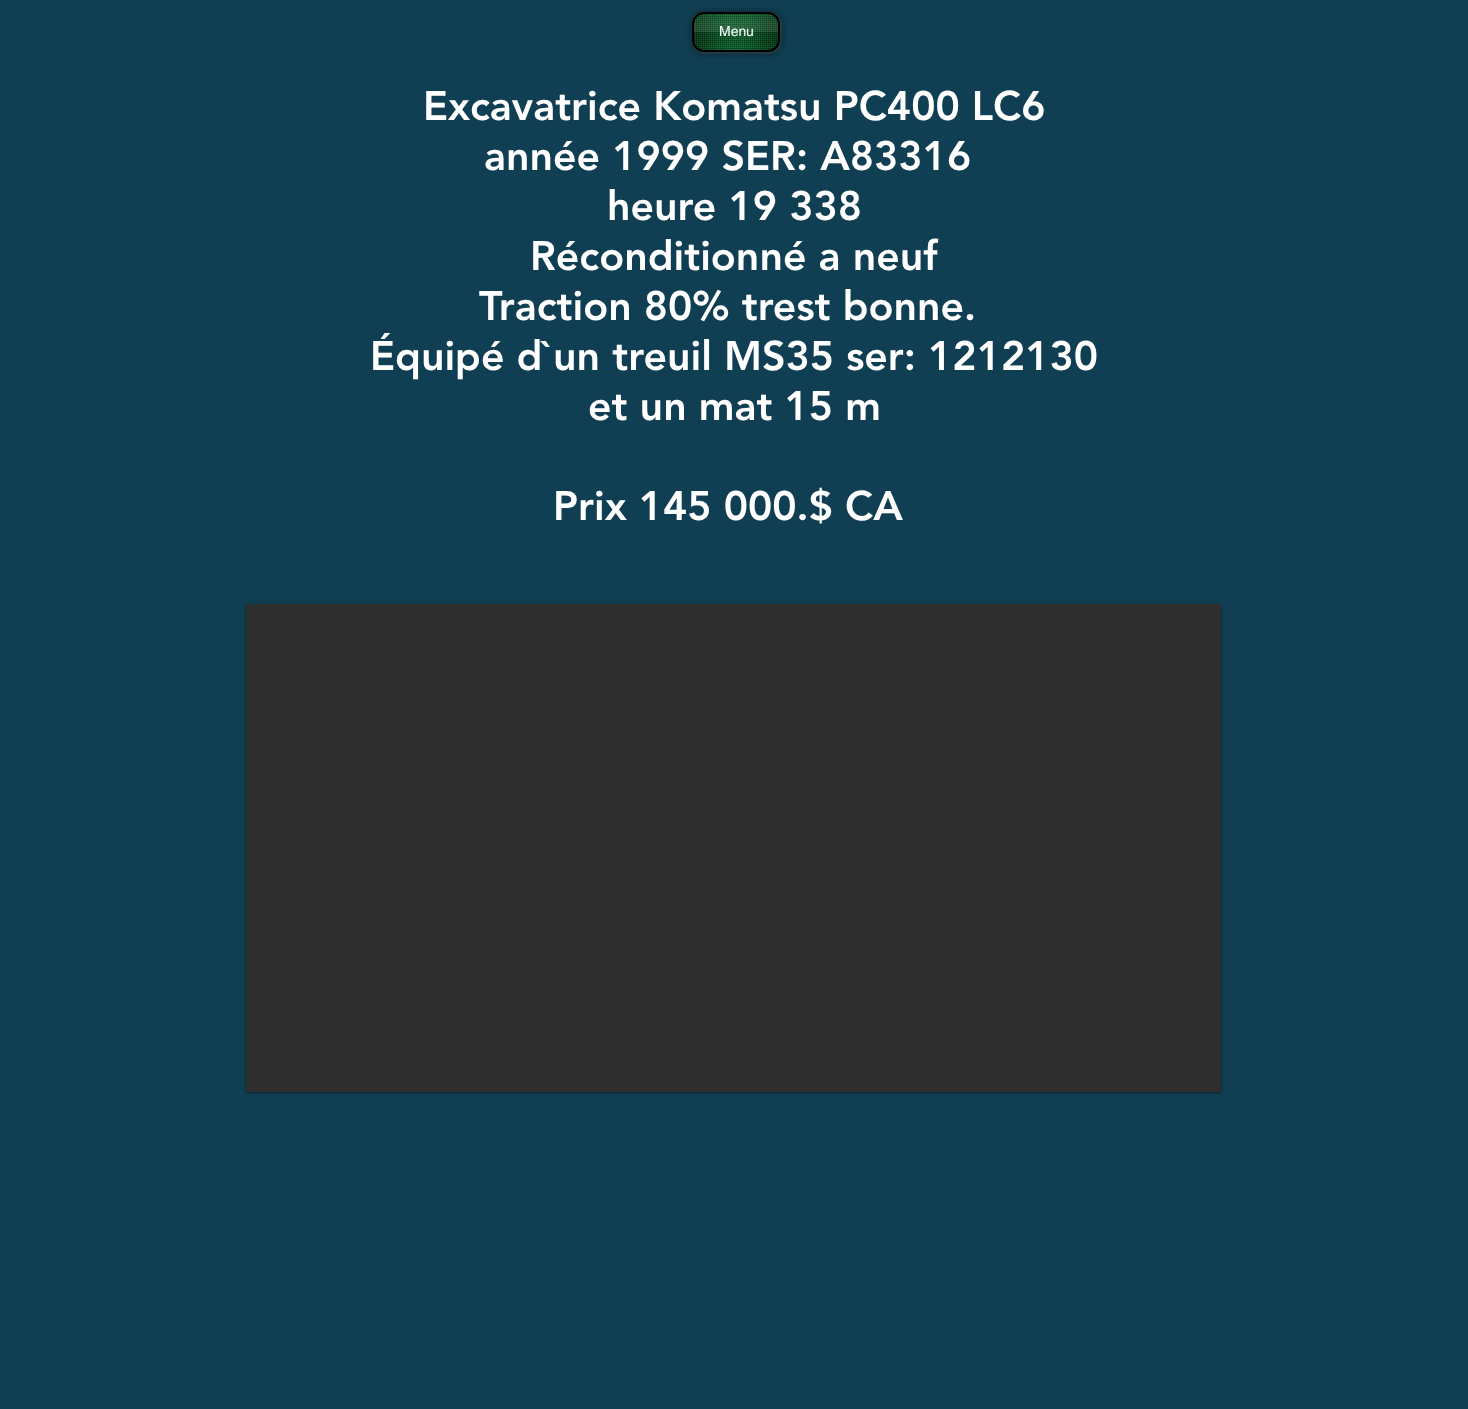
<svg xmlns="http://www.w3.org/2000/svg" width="1468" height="1409">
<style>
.a{font:14px helvetica;fill:#fff}
.b{font:900 41px 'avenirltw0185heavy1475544';fill:#fff}
</style>
<rect width="100%" height="100%" fill="#103f54"/>
<rect fill="#ffffff4d" filter="blur(1.5px)" x="693" y="13" width="88" height="40" rx="12"/>
<rect fill="#00000099" filter="blur(3px)" x="692" y="12" width="90" height="42" rx="13"/>
<rect fill="#1c8a43" x="692" y="12" width="88" height="40" rx="12"/>
<image href="1.png" x="692" y="12" width="88" height="40"/>
<rect fill="none" stroke="#000" stroke-width="2" x="693" y="13" width="86" height="38" rx="11"/>
<image href="2.png" x="694" y="14" width="46" height="36"/>
<image href="4.png" x="733" y="14" width="45" height="36"/>
<path fill="#00000080" filter="blur(1.5px)" d="M246 605h975v488H246z"/>
<path fill="#2f2e2e" d="M246 604h975v488H246z"/>
<text class="a" x="719" y="36">Menu</text>
<image href="3.png" x="694" y="14" width="84" height="18"/>
<text class="b" x="423" y="120">Excavatrice Komatsu PC400 LC6</text>
<text class="b" x="484" y="170">année 1999 SER: A83316</text>
<text class="b" x="607" y="220">heure 19 338</text>
<text class="b" x="530" y="270">Réconditionné a neuf</text>
<text class="b" x="479" y="320">Traction 80% trest bonne.</text>
<text class="b" x="370" y="370">Équipé d`un treuil MS35 ser: 1212130</text>
<text class="b" x="588" y="420">et un mat 15 m</text>
<text class="b" x="553" y="520">Prix 145 000.$ CA</text>
</svg>
